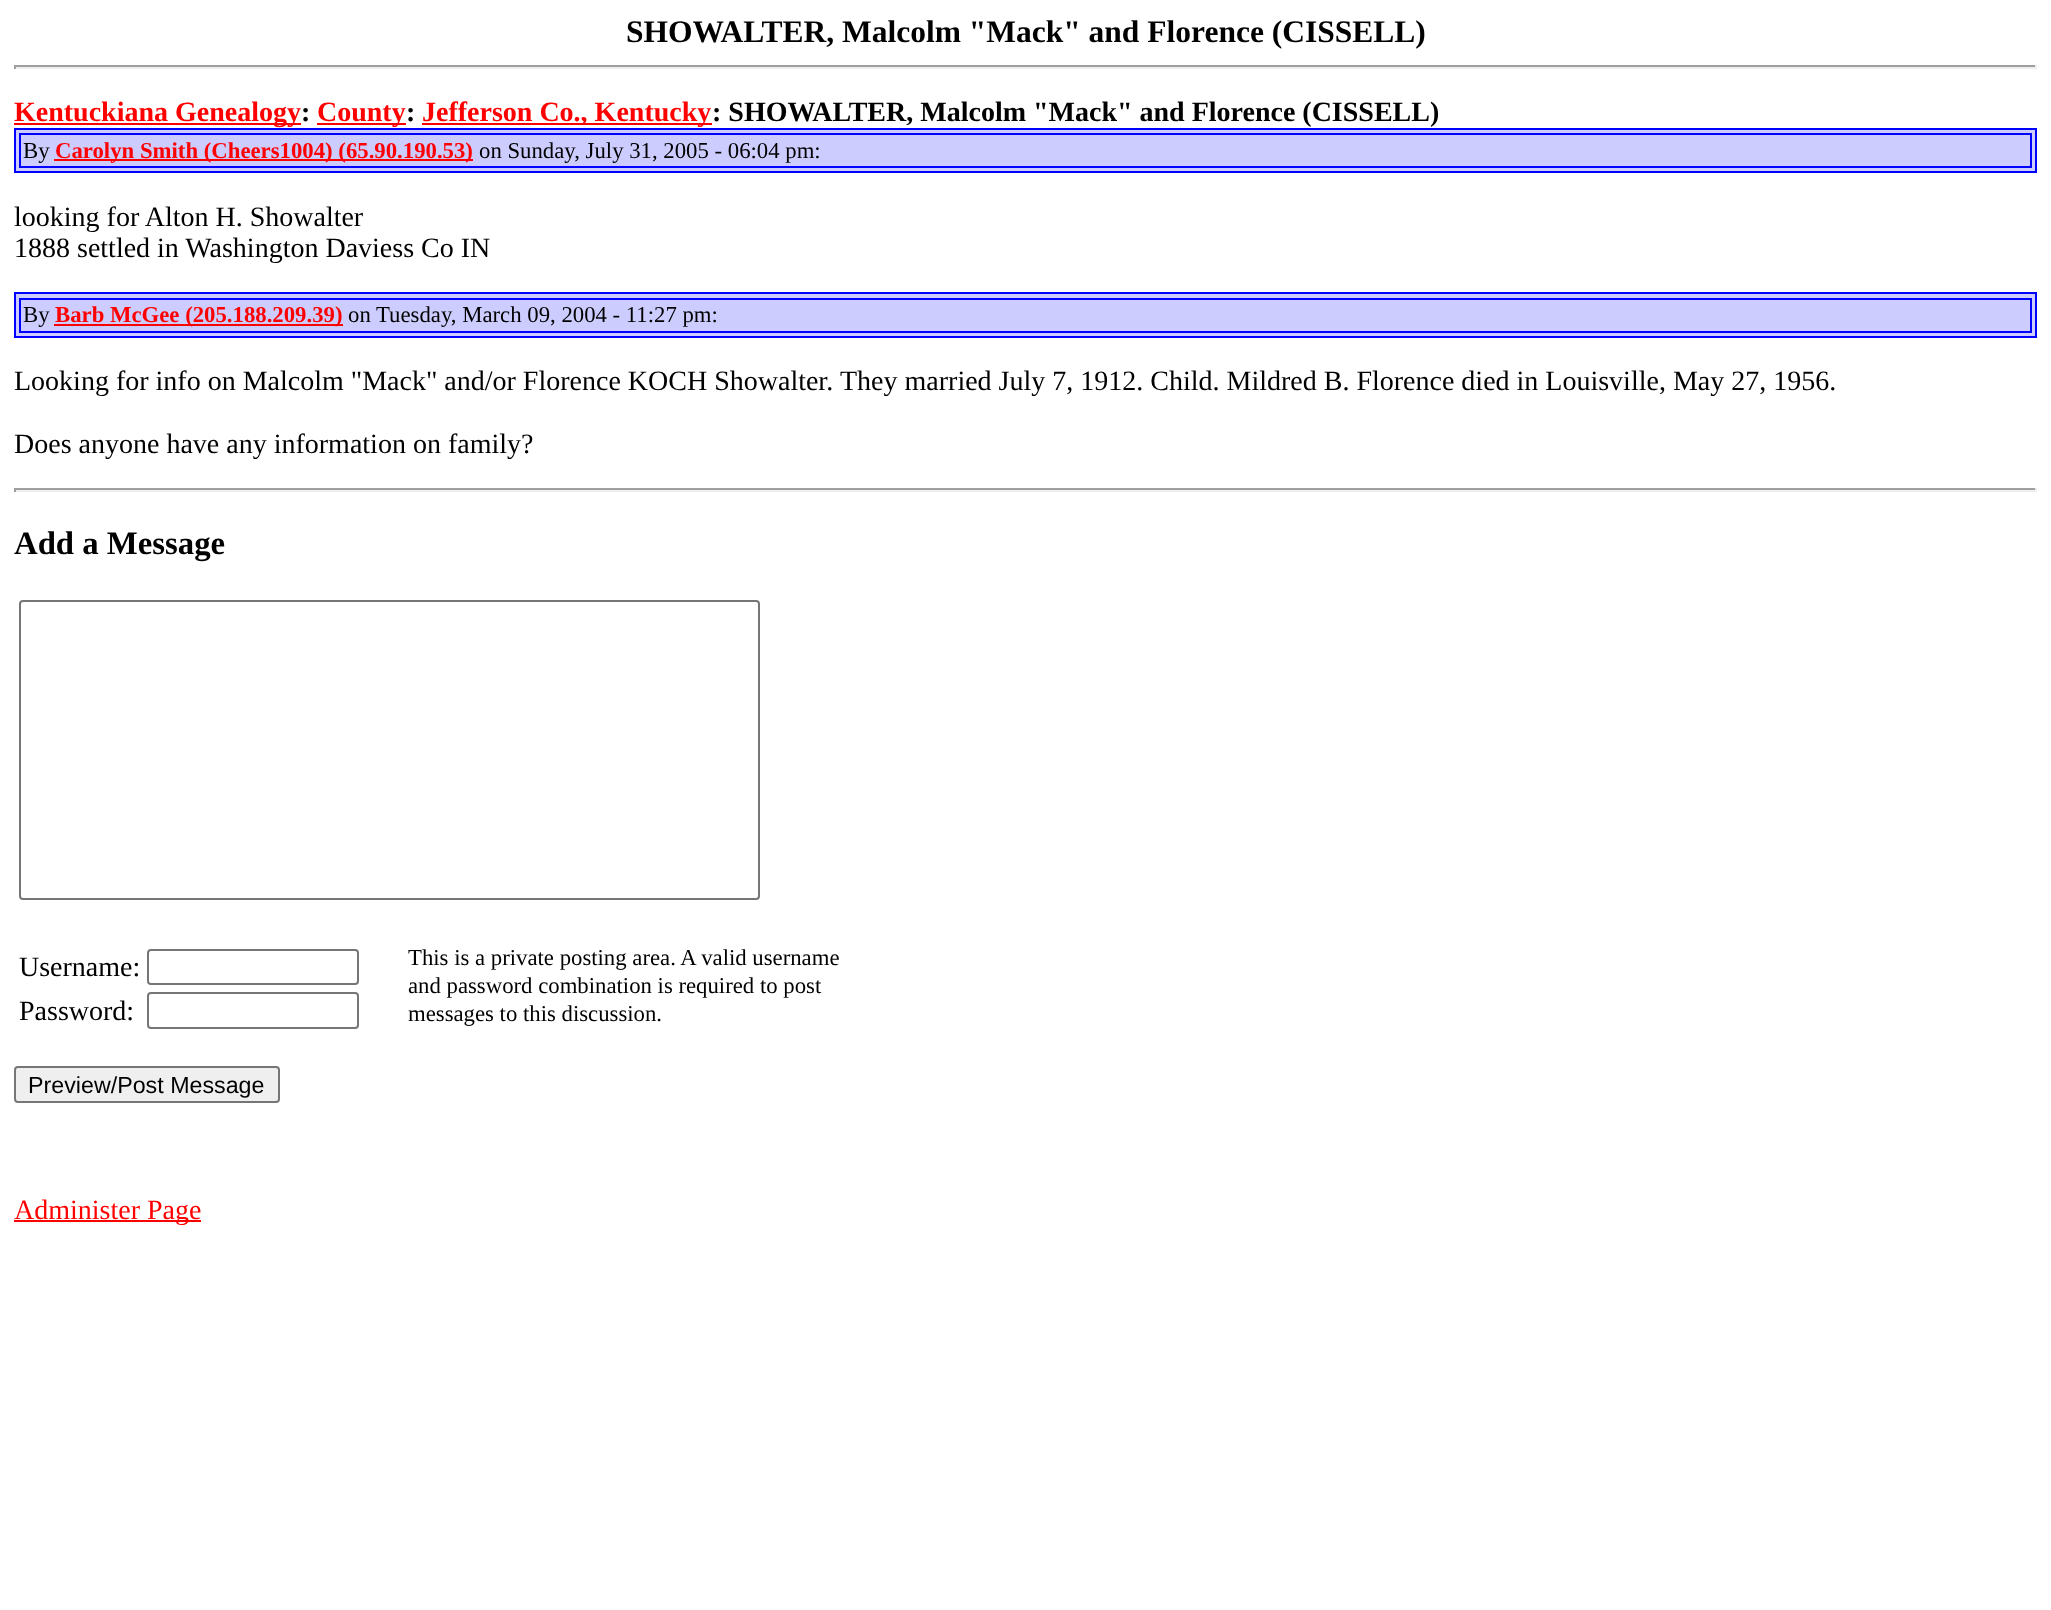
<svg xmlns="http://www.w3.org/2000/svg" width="2051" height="1610">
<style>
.a{font:bold 31.5px Liberation Serif;fill:#000}
.b{font:bold 28px Liberation Serif;fill:#f00}
.c{font:bold 28px Liberation Serif;fill:#000}
.d{font:22.75px Liberation Serif;fill:#000}
.e{font:bold 22.75px Liberation Serif;fill:#f00}
.f{font:28px Liberation Serif;fill:#000}
.g{font:bold 32.75px Liberation Serif;fill:#000}
.h{font:23.25px Liberation Sans;fill:#000}
.i{font:28px Liberation Serif;fill:#f00}
</style>
<rect width="100%" height="100%" fill="#fff"/>
<path fill="#9f9f9f" d="M14 65h2023v2H14z"/>
<path fill="#eee" d="M2035 65h2v4H2035z"/>
<path fill="#eee" d="M14 67h2023v2H14z"/>
<path fill="#9f9f9f" d="M14 65h2v4H14z"/>
<path fill="#f00" d="M14 123h287v2H14z"/>
<path fill="#f00" d="M317 123h89v2H317z"/>
<path fill="#f00" d="M422 123h290v2H422z"/>
<path fill="#ccf" stroke="#00f" stroke-width="2" d="M15 129h2021v43H15z"/>
<path fill="none" stroke="#00f" stroke-width="2" d="M20 134h2011v33H20z"/>
<path fill="#f00" d="M54 159h419v2H54z"/>
<path fill="#ccf" stroke="#00f" stroke-width="2" d="M15 293h2021v44H15z"/>
<path fill="none" stroke="#00f" stroke-width="2" d="M20 299h2011v33H20z"/>
<path fill="#f00" d="M54 324h289v2H54z"/>
<path fill="#9f9f9f" d="M14 488h2023v2H14z"/>
<path fill="#eee" d="M2035 488h2v4H2035z"/>
<path fill="#eee" d="M14 490h2023v2H14z"/>
<path fill="#9f9f9f" d="M14 488h2v4H14z"/>
<rect fill="none" stroke="#767676" stroke-width="2" x="20" y="601" width="739" height="298" rx="3"/>
<rect fill="none" stroke="#767676" stroke-width="2" x="148" y="950" width="210" height="34" rx="3"/>
<rect fill="none" stroke="#767676" stroke-width="2" x="148" y="993" width="210" height="35" rx="3"/>
<rect fill="#efefef" stroke="#767676" stroke-width="2" x="15" y="1067" width="264" height="35" rx="3"/>
<path fill="#f00" d="M14 1220h187v2H14z"/>
<text class="a" x="626" y="42">SHOWALTER, Malcolm "Mack" and Florence (CISSELL)</text>
<text class="b" x="14" y="121">Kentuckiana Genealogy</text>
<text class="c" x="301" y="121">:</text>
<text class="b" x="317" y="121">County</text>
<text class="c" x="406" y="121">:</text>
<text class="b" x="422" y="121">Jefferson Co., Kentucky</text>
<text class="c" x="712" y="121">: SHOWALTER, Malcolm "Mack" and Florence (CISSELL)</text>
<text class="d" x="23" y="158">By</text>
<text class="e" x="55" y="158">Carolyn Smith (Cheers1004) (65.90.190.53)</text>
<text class="d" x="479" y="158">on Sunday, July 31, 2005 - 06:04 pm:</text>
<text class="f" x="14" y="226">looking for Alton H. Showalter</text>
<text class="f" x="14" y="257">1888 settled in Washington Daviess Co IN</text>
<text class="d" x="23" y="322">By</text>
<text class="e" x="55" y="322">Barb McGee (205.188.209.39)</text>
<text class="d" x="348" y="322">on Tuesday, March 09, 2004 - 11:27 pm:</text>
<text class="f" x="14" y="390">Looking for info on Malcolm "Mack" and/or Florence KOCH Showalter.</text>
<text class="f" x="840" y="390">They married July 7, 1912. Child. Mildred B. Florence died in Louisville, May 27, 1956.</text>
<text class="f" x="14" y="453">Does anyone have any information on family?</text>
<text class="g" x="14" y="554">Add a Message</text>
<text class="f" x="19" y="976">Username:</text>
<text class="d" x="408" y="965">This is a private posting area. A valid username</text>
<text class="d" x="408" y="993">and password combination is required to post</text>
<text class="d" x="408" y="1021">messages to this discussion.</text>
<text class="f" x="19" y="1020">Password:</text>
<text class="h" x="28" y="1093">Preview/Post Message</text>
<text class="i" x="14" y="1219">Administer Page</text>
</svg>
